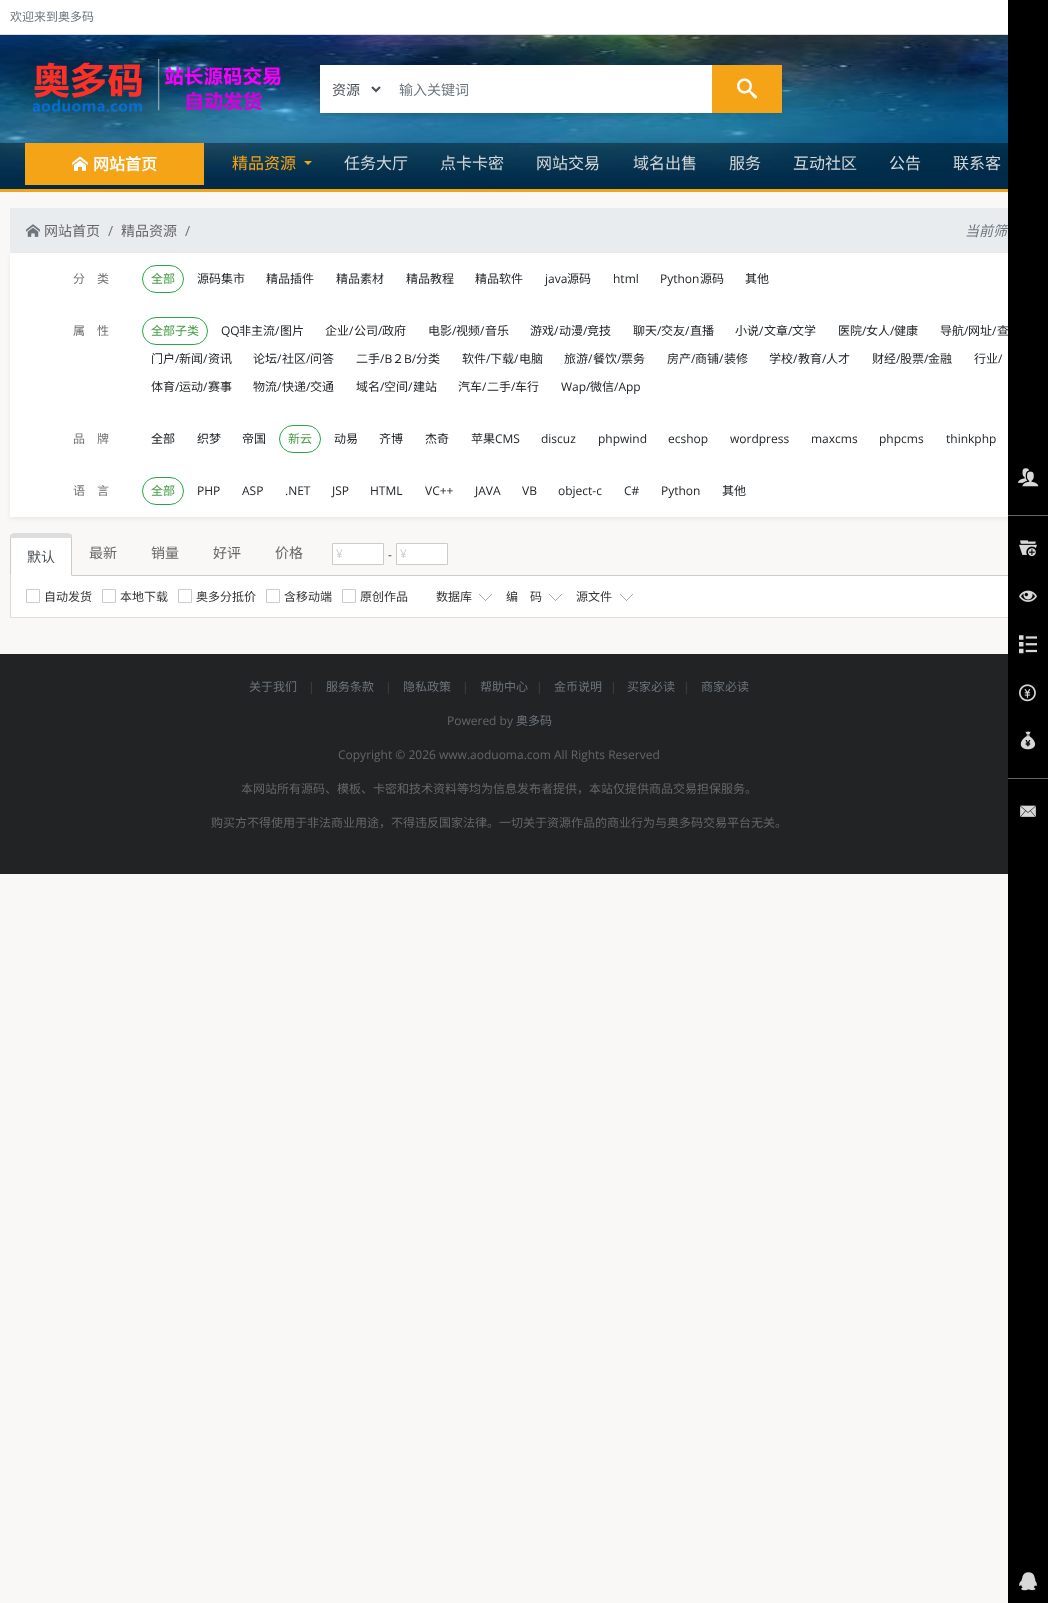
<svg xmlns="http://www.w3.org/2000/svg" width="1048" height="1603">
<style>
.a{font:12px Noto Sans CJK SC;fill:#6c757d}
.b{font:14px Noto Sans CJK SC;fill:#495057}
.c{font:14px Noto Sans CJK SC;fill:#6c757d}
.d{font:bold 16px Noto Sans CJK SC;fill:#fff}
.e{font:16px Noto Sans CJK SC;fill:#f5a418}
.f{font:16px Noto Sans CJK SC;fill:#d6d8d9}
.g{font:14px Noto Sans CJK SC;fill:#666}
.h{font:14px Open Sans;fill:#6c757d}
.i{font:italic 14px Noto Sans CJK SC;fill:#6c757d}
.j{font:12px Noto Sans CJK SC;fill:#6f7174}
.k{font:12px Noto Sans CJK SC;fill:#449d44}
.l{font:12px Noto Sans CJK SC;fill:#212529}
.m{font:12px Open Sans;fill:#212529}
.n{font:12px Open Sans;fill:#ccc}
.o{font:12px Open Sans;fill:#333}
.p{font:12px Noto Sans CJK SC;fill:#333}
.q{font:12px Open Sans;fill:#444545}
.r{font:12px Open Sans;fill:#666}
.s{font:12px Noto Sans CJK SC;fill:#666}
</style>
<rect width="100%" height="100%" fill="#f9f8f7"/>
<path fill="#fff" d="M0 0h1008v34H0z"/>
<path fill="#ddd" d="M0 34h1008v1H0z"/>
<image href="9.png" x="0" y="35" width="1008" height="154"/>
<path fill="#f5a418" d="M0 189h1008v3H0z"/>
<image href="10.png" x="32" y="59" width="249" height="53"/>
<path fill="#00000012" filter="blur(2px)" d="M320 67h462v48H320z"/>
<path fill="#fff" d="M320 65h63v48H320z"/>
<path fill="none" stroke="#495057" stroke-width="2" d="M372 87l4 4l4-4"/>
<path fill="#fff" d="M383 66h329v46H383z"/>
<path fill="#fff" d="M383 65h330v1H383z"/>
<path fill="#fff" d="M383 112h330v1H383z"/>
<path fill="#f5a418" d="M712 65h70v48H712z"/>
<image href="11.png" x="737" y="78" width="20" height="21"/>
<path fill="#00000066" d="M0 143h1008v46H0z"/>
<path fill="#f5a418" d="M25 143h179v42H25z"/>
<image href="12.png" x="72" y="156" width="16" height="15"/>
<path fill="#f5a418" d="M304 161h8l-4 4z"/>
<path fill="#e9ecef" d="M10 208h998v45H10z"/>
<image href="13.png" x="26" y="224" width="14" height="13"/>
<path fill="#00000012" filter="blur(2px)" d="M10 255h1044v264H10z"/>
<path fill="#fff" d="M10 253h998v264H10z"/>
<rect fill="none" stroke="#28a745" x="142.5" y="265.5" width="41" height="27" rx="13.5"/>
<rect fill="none" stroke="#28a745" x="142.5" y="317.5" width="65" height="27" rx="13.5"/>
<rect fill="none" stroke="#28a745" x="279.5" y="425.5" width="41" height="27" rx="13.5"/>
<rect fill="none" stroke="#28a745" x="142.5" y="477.5" width="41" height="27" rx="13.5"/>
<path fill="#ccc" d="M72 575h936v1H72z"/>
<path fill="#fff" d="M14 533h54c2 0 4 2 4 4v39h-62v-39c0-2 2-4 4-4z"/>
<path fill="#ddd" d="M14 533c-1 0-3 1-4 2l1 3h60l1-3c-1-1-3-2-4-2z"/>
<path fill="#ccc" d="M72 576v-39v-2l-1 3v37zm-62 0l1-1v-37l-1-3v2z"/>
<path fill="#fff" stroke="#ccc" d="M332.5 543.5h51v21H332.5z"/>
<path fill="#fff" stroke="#ccc" d="M396.5 543.5h51v21H396.5z"/>
<path fill="#fff" d="M11 576h997v41H11z"/>
<path fill="#ddd" d="M10 617h998v1H10z"/>
<path fill="#ddd" d="M10 576h1v42H10z"/>
<path fill="none" stroke="#ccc" d="M26.5 589.5h13v13H26.5z"/>
<path fill="none" stroke="#ccc" d="M102.5 589.5h13v13H102.5z"/>
<path fill="none" stroke="#ccc" d="M178.5 589.5h13v13H178.5z"/>
<path fill="none" stroke="#ccc" d="M266.5 589.5h13v13H266.5z"/>
<path fill="none" stroke="#ccc" d="M342.5 589.5h13v13H342.5z"/>
<image href="14.png" x="479" y="594" width="13" height="7"/>
<image href="14.png" x="549" y="594" width="13" height="7"/>
<image href="14.png" x="620" y="594" width="13" height="7"/>
<path fill="#222324" d="M0 654h1008v220H0z"/>
<text class="a" x="10" y="21">欢迎来到奥多码</text>
<text class="b" x="332" y="95">资源</text>
<text class="c" x="399" y="95">输入关键词</text>
<text class="d" x="93" y="170">网站首页</text>
<text class="e" x="232" y="169">精品资源</text>
<text class="f" x="344" y="169">任务大厅</text>
<text class="f" x="440" y="169">点卡卡密</text>
<text class="f" x="536" y="169">网站交易</text>
<text class="f" x="633" y="169">域名出售</text>
<text class="f" x="729" y="169">服务</text>
<text class="f" x="793" y="169">互动社区</text>
<text class="f" x="889" y="169">公告</text>
<text class="f" x="953" y="169">联系客</text>
<text class="g" x="44" y="236">网站首页</text>
<text class="h" x="108" y="236">/</text>
<text class="g" x="121" y="236">精品资源</text>
<text class="h" x="185" y="236">/</text>
<text class="i" x="965" y="236">当前筛</text>
<text class="j" x="73" y="283">分　类</text>
<text class="k" x="151" y="283">全部</text>
<text class="l" x="197" y="283">源码集市</text>
<text class="l" x="266" y="283">精品插件</text>
<text class="l" x="336" y="283">精品素材</text>
<text class="l" x="406" y="283">精品教程</text>
<text class="l" x="475" y="283">精品软件</text>
<text class="m" x="545" y="283">java</text>
<text class="l" x="567" y="283">源码</text>
<text class="m" x="613" y="283">html</text>
<text class="m" x="660" y="283">Python</text>
<text class="l" x="700" y="283">源码</text>
<text class="l" x="745" y="283">其他</text>
<text class="j" x="73" y="335">属　性</text>
<text class="k" x="151" y="335">全部子类</text>
<text class="m" x="221" y="335">QQ</text>
<text class="l" x="239" y="335">非主流</text>
<text class="m" x="275" y="335">/</text>
<text class="l" x="280" y="335">图片</text>
<text class="l" x="325" y="335">企业</text>
<text class="m" x="349" y="335">/</text>
<text class="l" x="354" y="335">公司</text>
<text class="m" x="378" y="335">/</text>
<text class="l" x="382" y="335">政府</text>
<text class="l" x="428" y="335">电影</text>
<text class="m" x="452" y="335">/</text>
<text class="l" x="456" y="335">视频</text>
<text class="m" x="480" y="335">/</text>
<text class="l" x="485" y="335">音乐</text>
<text class="l" x="530" y="335">游戏</text>
<text class="m" x="554" y="335">/</text>
<text class="l" x="559" y="335">动漫</text>
<text class="m" x="583" y="335">/</text>
<text class="l" x="587" y="335">竞技</text>
<text class="l" x="633" y="335">聊天</text>
<text class="m" x="657" y="335">/</text>
<text class="l" x="661" y="335">交友</text>
<text class="m" x="685" y="335">/</text>
<text class="l" x="690" y="335">直播</text>
<text class="l" x="735" y="335">小说</text>
<text class="m" x="759" y="335">/</text>
<text class="l" x="764" y="335">文章</text>
<text class="m" x="788" y="335">/</text>
<text class="l" x="792" y="335">文学</text>
<text class="l" x="838" y="335">医院</text>
<text class="m" x="862" y="335">/</text>
<text class="l" x="866" y="335">女人</text>
<text class="m" x="890" y="335">/</text>
<text class="l" x="894" y="335">健康</text>
<text class="l" x="940" y="335">导航</text>
<text class="m" x="964" y="335">/</text>
<text class="l" x="968" y="335">网址</text>
<text class="m" x="992" y="335">/</text>
<text class="l" x="997" y="335">查</text>
<path fill="#000" d="M1008 0h40v1603H1008z"/>
<image href="7.png" x="1020" y="805" width="16" height="12"/>
<image href="6.png" x="1020" y="731" width="16" height="19"/>
<image href="5.png" x="1019" y="684" width="17" height="18"/>
<image href="4.png" x="1019" y="635" width="18" height="19"/>
<image href="3.png" x="1019" y="590" width="18" height="12"/>
<image href="2.png" x="1019" y="540" width="18" height="17"/>
<image href="1.png" x="1018" y="468" width="21" height="19"/>
<path fill="#666" d="M1008 778h40v1H1008z"/>
<path fill="#666" d="M1008 515h40v1H1008z"/>
<image href="8.png" x="1019" y="1572" width="18" height="19"/>
<text class="l" x="151" y="363">门户</text>
<text class="m" x="175" y="363">/</text>
<text class="l" x="179" y="363">新闻</text>
<text class="m" x="203" y="363">/</text>
<text class="l" x="208" y="363">资讯</text>
<text class="l" x="253" y="363">论坛</text>
<text class="m" x="277" y="363">/</text>
<text class="l" x="282" y="363">社区</text>
<text class="m" x="306" y="363">/</text>
<text class="l" x="310" y="363">问答</text>
<text class="l" x="356" y="363">二手</text>
<text class="m" x="380" y="363">/B</text>
<text class="l" x="392" y="363">２</text>
<text class="m" x="404" y="363">B/</text>
<text class="l" x="416" y="363">分类</text>
<text class="l" x="462" y="363">软件</text>
<text class="m" x="486" y="363">/</text>
<text class="l" x="490" y="363">下载</text>
<text class="m" x="514" y="363">/</text>
<text class="l" x="519" y="363">电脑</text>
<text class="l" x="564" y="363">旅游</text>
<text class="m" x="588" y="363">/</text>
<text class="l" x="593" y="363">餐饮</text>
<text class="m" x="617" y="363">/</text>
<text class="l" x="621" y="363">票务</text>
<text class="l" x="667" y="363">房产</text>
<text class="m" x="691" y="363">/</text>
<text class="l" x="695" y="363">商铺</text>
<text class="m" x="719" y="363">/</text>
<text class="l" x="724" y="363">装修</text>
<text class="l" x="769" y="363">学校</text>
<text class="m" x="793" y="363">/</text>
<text class="l" x="798" y="363">教育</text>
<text class="m" x="822" y="363">/</text>
<text class="l" x="826" y="363">人才</text>
<text class="l" x="872" y="363">财经</text>
<text class="m" x="896" y="363">/</text>
<text class="l" x="900" y="363">股票</text>
<text class="m" x="924" y="363">/</text>
<text class="l" x="928" y="363">金融</text>
<text class="l" x="974" y="363">行业</text>
<text class="m" x="998" y="363">/</text>
<text class="l" x="151" y="391">体育</text>
<text class="m" x="175" y="391">/</text>
<text class="l" x="179" y="391">运动</text>
<text class="m" x="203" y="391">/</text>
<text class="l" x="208" y="391">赛事</text>
<text class="l" x="253" y="391">物流</text>
<text class="m" x="277" y="391">/</text>
<text class="l" x="282" y="391">快递</text>
<text class="m" x="306" y="391">/</text>
<text class="l" x="310" y="391">交通</text>
<text class="l" x="356" y="391">域名</text>
<text class="m" x="380" y="391">/</text>
<text class="l" x="384" y="391">空间</text>
<text class="m" x="408" y="391">/</text>
<text class="l" x="413" y="391">建站</text>
<text class="l" x="458" y="391">汽车</text>
<text class="m" x="482" y="391">/</text>
<text class="l" x="487" y="391">二手</text>
<text class="m" x="511" y="391">/</text>
<text class="l" x="515" y="391">车行</text>
<text class="m" x="561" y="391">Wap/</text>
<text class="l" x="590" y="391">微信</text>
<text class="m" x="614" y="391">/App</text>
<text class="j" x="73" y="443">品　牌</text>
<text class="l" x="151" y="443">全部</text>
<text class="l" x="197" y="443">织梦</text>
<text class="l" x="242" y="443">帝国</text>
<text class="k" x="288" y="443">新云</text>
<text class="l" x="334" y="443">动易</text>
<text class="l" x="379" y="443">齐博</text>
<text class="l" x="425" y="443">杰奇</text>
<text class="l" x="471" y="443">苹果</text>
<text class="m" x="495" y="443">CMS</text>
<text class="m" x="541" y="443">discuz</text>
<text class="m" x="598" y="443">phpwind</text>
<text class="m" x="668" y="443">ecshop</text>
<text class="m" x="730" y="443">wordpress</text>
<text class="m" x="811" y="443">maxcms</text>
<text class="m" x="879" y="443">phpcms</text>
<text class="m" x="946" y="443">thinkphp</text>
<text class="j" x="73" y="495">语　言</text>
<text class="k" x="151" y="495">全部</text>
<text class="m" x="197" y="495">PHP</text>
<text class="m" x="242" y="495">ASP</text>
<text class="m" x="285" y="495">.NET</text>
<text class="m" x="332" y="495">JSP</text>
<text class="m" x="370" y="495">HTML</text>
<text class="m" x="425" y="495">VC++</text>
<text class="m" x="475" y="495">JAVA</text>
<text class="m" x="522" y="495">VB</text>
<text class="m" x="558" y="495">object-c</text>
<text class="m" x="624" y="495">C#</text>
<text class="m" x="661" y="495">Python</text>
<text class="l" x="722" y="495">其他</text>
<text class="b" x="27" y="562">默认</text>
<text class="g" x="89" y="558">最新</text>
<text class="g" x="151" y="558">销量</text>
<text class="g" x="213" y="558">好评</text>
<text class="g" x="275" y="558">价格</text>
<text class="n" x="336" y="558">¥</text>
<text class="o" x="388" y="559">-</text>
<text class="n" x="400" y="558">¥</text>
<text class="p" x="44" y="601">自动发货</text>
<text class="p" x="120" y="601">本地下载</text>
<text class="p" x="196" y="601">奥多分抵价</text>
<text class="p" x="284" y="601">含移动端</text>
<text class="p" x="360" y="601">原创作品</text>
<text class="p" x="436" y="601">数据库</text>
<text class="p" x="506" y="601">编　码</text>
<text class="p" x="576" y="601">源文件</text>
<text class="a" x="249" y="691">关于我们</text>
<text class="q" x="308" y="691">|</text>
<text class="a" x="326" y="691">服务条款</text>
<text class="q" x="385" y="691">|</text>
<text class="a" x="403" y="691">隐私政策</text>
<text class="q" x="462" y="691">|</text>
<text class="a" x="480" y="691">帮助中心</text>
<text class="q" x="536" y="691">|</text>
<text class="a" x="554" y="691">金币说明</text>
<text class="q" x="610" y="691">|</text>
<text class="a" x="627" y="691">买家必读</text>
<text class="q" x="683" y="691">|</text>
<text class="a" x="701" y="691">商家必读</text>
<text class="r" x="447" y="725">Powered by</text>
<text class="a" x="516" y="725">奥多码</text>
<text class="r" x="338" y="759">Copyright © 2026 www.aoduoma.com All Rights Reserved</text>
<text class="s" x="241" y="793">本网站所有源码、模板、卡密和技术资料等均为信息发布者提供，本站仅提供商品交易担保服务。</text>
<text class="s" x="211" y="827">购买方不得使用于非法商业用途，不得违反国家法律。一切关于资源作品的商业行为与奥多码交易平台无关。</text>
</svg>
